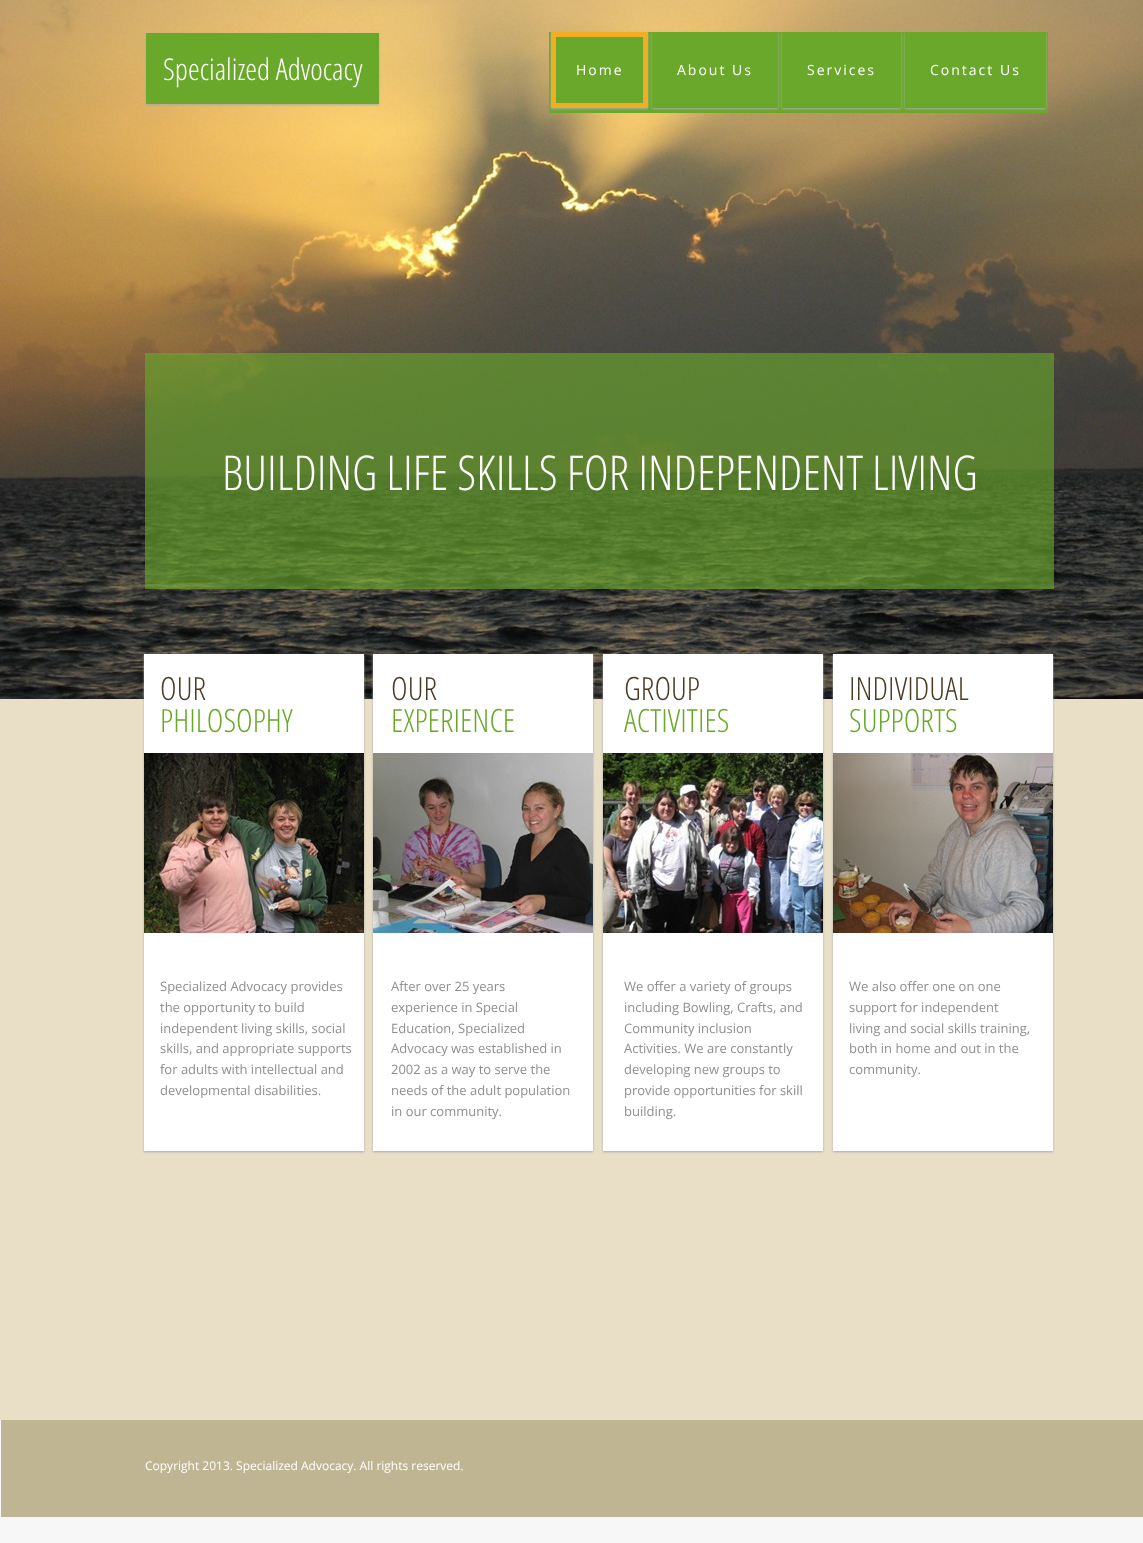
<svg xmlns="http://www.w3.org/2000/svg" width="1143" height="1543">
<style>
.a{font:300 30px Open Sans Condensed;fill:#fff}
.b{font:14px Open Sans;letter-spacing:2px;fill:#fff}
.c{font:300 48px Open Sans Condensed;fill:#fff}
.d{font:300 32px Open Sans Condensed;fill:#4b3c25}
.e{font:300 32px Open Sans Condensed;fill:#6aa82b}
.f{font:13px Open Sans;fill:#8f8f8f}
.g{font:12px Open Sans;fill:#fff}
</style>
<defs>
<clipPath id="clip1"><path d="M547 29h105v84h-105zm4 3h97v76h-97z" clip-rule="evenodd"/></clipPath>
<clipPath id="clip2"><path d="M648 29h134v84h-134zm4 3h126v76h-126z" clip-rule="evenodd"/></clipPath>
<clipPath id="clip3"><path d="M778 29h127v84h-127zm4 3h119v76h-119z" clip-rule="evenodd"/></clipPath>
<clipPath id="clip4"><path d="M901 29h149v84h-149zm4 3h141v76h-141z" clip-rule="evenodd"/></clipPath>
</defs>
<rect width="100%" height="100%" fill="#f7f7f7"/>
<path fill="#e8dfc6" d="M0 699h1143v721H0z"/>
<image href="1.png" x="0" y="0" width="1143" height="699"/>
<path fill="#aaa" filter="blur(1px)" d="M146 34h233v71H146z"/>
<path fill="#6aa82b" d="M146 33h233v71H146z"/>
<path fill="#6aa82b" d="M549 32h101v81H549z"/>
<g clip-path="url(#clip1)">
<path fill="#aaa" filter="blur(1px)" d="M551 33h97v76H551z"/>
</g>
<path fill="none" stroke="#f2ad22" stroke-width="5" d="M553.5 34.5h92v71H553.5z"/>
<path fill="#6aa82b" d="M650 32h130v81H650z"/>
<g clip-path="url(#clip2)">
<path fill="#aaa" filter="blur(1px)" d="M652 33h126v76H652z"/>
</g>
<path fill="#6aa82b" d="M780 32h123v81H780z"/>
<g clip-path="url(#clip3)">
<path fill="#aaa" filter="blur(1px)" d="M782 33h119v76H782z"/>
</g>
<path fill="#6aa82b" d="M903 32h145v81H903z"/>
<g clip-path="url(#clip4)">
<path fill="#aaa" filter="blur(1px)" d="M905 33h141v76H905z"/>
</g>
<path fill="#6aa82ba1" d="M145 353h909v236H145z"/>
<path fill="#aaa" filter="blur(1px)" d="M144 655h220v497H144z"/>
<path fill="#fff" d="M144 654h220v497H144z"/>
<path fill="#aaa" filter="blur(1px)" d="M373 655h220v497H373z"/>
<path fill="#fff" d="M373 654h220v497H373z"/>
<path fill="#aaa" filter="blur(1px)" d="M603 655h220v497H603z"/>
<path fill="#fff" d="M603 654h220v497H603z"/>
<path fill="#aaa" filter="blur(1px)" d="M833 655h220v497H833z"/>
<path fill="#fff" d="M833 654h220v497H833z"/>
<image href="2.png" x="144" y="753" width="220" height="180"/>
<image href="3.png" x="373" y="753" width="220" height="180"/>
<image href="4.png" x="603" y="753" width="220" height="180"/>
<image href="5.png" x="833" y="753" width="220" height="180"/>
<path fill="#c0b593" d="M1 1420h1142v97H1z"/>
<text class="a" x="163" y="80">Specialized Advocacy</text>
<text class="b" x="576" y="75">Home</text>
<text class="b" x="677" y="75">About Us</text>
<text class="b" x="807" y="75">Services</text>
<text class="b" x="930" y="75">Contact Us</text>
<text class="c" x="222" y="490">BUILDING LIFE SKILLS FOR INDEPENDENT LIVING</text>
<text class="d" x="160" y="700">OUR</text>
<text class="e" x="160" y="732">PHILOSOPHY</text>
<text class="d" x="391" y="700">OUR</text>
<text class="e" x="391" y="732">EXPERIENCE</text>
<text class="d" x="624" y="700">GROUP</text>
<text class="e" x="624" y="732">ACTIVITIES</text>
<text class="d" x="849" y="700">INDIVIDUAL</text>
<text class="e" x="849" y="732">SUPPORTS</text>
<text class="f" x="160" y="991">Specialized Advocacy provides</text>
<text class="f" x="160" y="1012">the opportunity to build</text>
<text class="f" x="160" y="1033">independent living skills, social</text>
<text class="f" x="160" y="1053">skills, and appropriate supports</text>
<text class="f" x="160" y="1074">for adults with intellectual and</text>
<text class="f" x="160" y="1095">developmental disabilities.</text>
<text class="f" x="391" y="991">After over 25 years</text>
<text class="f" x="391" y="1012">experience in Special</text>
<text class="f" x="391" y="1033">Education, Specialized</text>
<text class="f" x="391" y="1053">Advocacy was established in</text>
<text class="f" x="391" y="1074">2002 as a way to serve the</text>
<text class="f" x="391" y="1095">needs of the adult population</text>
<text class="f" x="391" y="1116">in our community.</text>
<text class="f" x="624" y="991">We offer a variety of groups</text>
<text class="f" x="624" y="1012">including Bowling, Crafts, and</text>
<text class="f" x="624" y="1033">Community inclusion</text>
<text class="f" x="624" y="1053">Activities. We are constantly</text>
<text class="f" x="624" y="1074">developing new groups to</text>
<text class="f" x="624" y="1095">provide opportunities for skill</text>
<text class="f" x="624" y="1116">building.</text>
<text class="f" x="849" y="991">We also offer one on one</text>
<text class="f" x="849" y="1012">support for independent</text>
<text class="f" x="849" y="1033">living and social skills training,</text>
<text class="f" x="849" y="1053">both in home and out in the</text>
<text class="f" x="849" y="1074">community.</text>
<text class="g" x="145" y="1470">Copyright 2013. Specialized Advocacy. All rights reserved.</text>
</svg>
